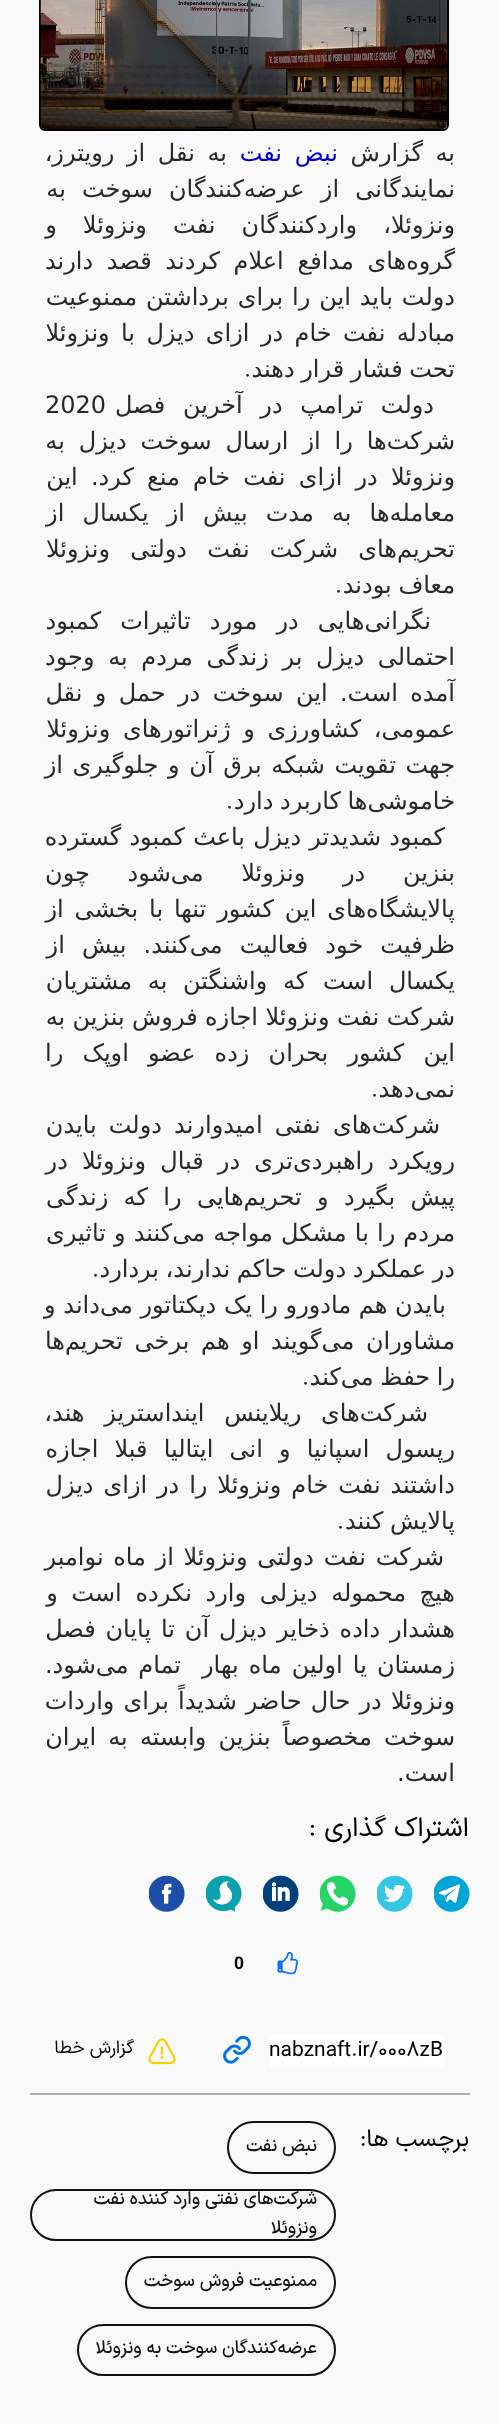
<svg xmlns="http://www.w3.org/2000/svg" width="499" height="2424">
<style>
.a{font:24px DejaVu Sans;direction:rtl;fill:#292929}
.b{font:24px DejaVu Sans;direction:rtl;fill:#0000cd}
.c{font:24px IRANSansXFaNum;fill:#292929}
.d{font:24px DejaVu Sans;fill:#292929}
.e{font:27px IRANSansXFaNum;direction:rtl;fill:#000}
.f{font:bold 18px Liberation Sans;fill:#000}
.g{font:21px IRANSansXFaNum;fill:#000}
.h{font:18px IRANSansXFaNum;direction:rtl;fill:#000}
.i{font:24px IRANSansXFaNum;direction:rtl;fill:#000}
.j{font:500 18px IRANSansXFaNum;direction:rtl;fill:#121212}
</style>
<rect width="100%" height="100%" fill="#f9f9f9"/>
<rect fill="none" stroke="#000" stroke-width="2" x="40" y="-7" width="408" height="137" rx="5"/>
<image href="1.png" x="40" y="0" width="407" height="129"/>
<image href="2.png" x="434" y="1875" width="36" height="37"/>
<image href="3.png" x="377" y="1875" width="36" height="37"/>
<image href="4.png" x="320" y="1875" width="36" height="37"/>
<image href="5.png" x="263" y="1875" width="36" height="37"/>
<image href="6.png" x="206" y="1875" width="36" height="37"/>
<image href="7.png" x="149" y="1875" width="36" height="37"/>
<path fill="#aeaeae" d="M30 2093h440v2H30z"/>
<image href="8.png" x="277" y="1951" width="22" height="24"/>
<path fill="#fff" d="M270 2034h174v33H270z"/>
<image href="9.png" x="223" y="2035" width="28" height="29"/>
<image href="10.png" x="148" y="2038" width="28" height="27"/>
<rect fill="none" stroke="#121212" stroke-width="2" x="228" y="2122" width="107" height="51" rx="25.5"/>
<rect fill="none" stroke="#121212" stroke-width="2" x="31" y="2190" width="304" height="50" rx="25"/>
<rect fill="none" stroke="#121212" stroke-width="2" x="126" y="2257" width="209" height="51" rx="25.5"/>
<rect fill="none" stroke="#121212" stroke-width="2" x="78" y="2325" width="257" height="50" rx="25"/>
<text class="a" x="455" y="161" word-spacing="5">به گزارش</text>
<text class="b" x="338" y="161" word-spacing="5">نبض نفت</text>
<text class="a" x="227" y="161" word-spacing="5">به نقل از رویترز،</text>
<text class="a" x="455" y="197" word-spacing="8.5">نمایندگانی از عرضه‌کنندگان سوخت به</text>
<text class="a" x="455" y="233" word-spacing="18.5">ونزوئلا، واردکنندگان نفت ونزوئلا و</text>
<text class="a" x="455" y="269" word-spacing="6">گروه‌های مدافع اعلام کردند قصد دارند</text>
<text class="a" x="455" y="305" word-spacing="1.25">دولت باید این را برای برداشتن ممنوعیت</text>
<text class="a" x="455" y="341" word-spacing="3.75">مبادله نفت خام در ازای دیزل با ونزوئلا</text>
<text class="a" x="455" y="377" word-spacing="-1">تحت فشار قرار دهند</text>
<text class="c" x="244" y="377">.</text>
<text class="a" x="434" y="413" word-spacing="10">دولت ترامپ در آخرین فصل</text>
<text class="d" x="45" y="413">2020</text>
<text class="a" x="455" y="449" word-spacing="6.25">شرکت‌ها را از ارسال سوخت دیزل به</text>
<text class="a" x="455" y="485" word-spacing="5.5">ونزوئلا در ازای نفت خام منع کرد. این</text>
<text class="a" x="455" y="521" word-spacing="10.5">معامله‌ها به مدت بیش از یکسال از</text>
<text class="a" x="455" y="557" word-spacing="12.5">تحریم‌های شرکت نفت دولتی ونزوئلا</text>
<text class="a" x="455" y="593" word-spacing="-1">معاف بودند</text>
<text class="c" x="335" y="593">.</text>
<text class="a" x="431" y="629" word-spacing="11.5">نگرانی‌هایی در مورد تاثیرات کمبود</text>
<text class="a" x="455" y="665" word-spacing="6">احتمالی دیزل بر زندگی مردم به وجود</text>
<text class="a" x="455" y="701" word-spacing="4.75">آمده است. این سوخت در حمل و نقل</text>
<text class="a" x="455" y="737" word-spacing="5">عمومی، کشاورزی و ژنراتورهای ونزوئلا</text>
<text class="a" x="455" y="773" word-spacing="2">جهت تقویت شبکه برق آن و جلوگیری از</text>
<text class="a" x="455" y="809" word-spacing="-1">خاموشی‌ها کاربرد دارد</text>
<text class="c" x="226" y="809">.</text>
<text class="a" x="445" y="845" word-spacing="0.5">کمبود شدیدتر دیزل باعث کمبود گسترده</text>
<text class="a" x="455" y="881" word-spacing="30">بنزین در ونزوئلا می‌شود چون</text>
<text class="a" x="455" y="917" word-spacing="3.25">پالایشگاه‌های این کشور تنها با بخشی از</text>
<text class="a" x="455" y="953" word-spacing="9.5">ظرفیت خود فعالیت می‌کنند. بیش از</text>
<text class="a" x="455" y="989" word-spacing="8">یکسال است که واشنگتن به مشتریان</text>
<text class="a" x="455" y="1025" word-spacing="-0.25">شرکت نفت ونزوئلا اجازه فروش بنزین به</text>
<text class="a" x="455" y="1061" word-spacing="11.5">این کشور بحران زده عضو اوپک را</text>
<text class="a" x="455" y="1097">نمی‌دهد</text>
<text class="c" x="371" y="1097">.</text>
<text class="a" x="440" y="1133" word-spacing="4.5">شرکت‌های نفتی امیدوارند دولت بایدن</text>
<text class="a" x="455" y="1169" word-spacing="6.5">رویکرد راهبردی‌تری در قبال ونزوئلا در</text>
<text class="a" x="455" y="1205" word-spacing="7.75">پیش بگیرد و تحریم‌هایی را که زندگی</text>
<text class="a" x="455" y="1241" word-spacing="0.5">مردم را با مشکل مواجه می‌کنند و تاثیری</text>
<text class="a" x="455" y="1277" word-spacing="-1">در عملکرد دولت حاکم ندارند، بردارد</text>
<text class="c" x="92" y="1277">.</text>
<text class="a" x="446" y="1313">بایدن هم مادورو را یک دیکتاتور می‌داند و</text>
<text class="a" x="455" y="1349" word-spacing="4">مشاوران می‌گویند او هم برخی تحریم‌ها</text>
<text class="a" x="455" y="1385" word-spacing="-1">را حفظ می‌کند</text>
<text class="c" x="302" y="1385">.</text>
<text class="a" x="428" y="1421" word-spacing="12">شرکت‌های ریلاینس اینداستریز هند،</text>
<text class="a" x="455" y="1457" word-spacing="8.5">رپسول اسپانیا و انی ایتالیا قبلا اجازه</text>
<text class="a" x="455" y="1493" word-spacing="2.25">داشتند نفت خام ونزوئلا را در ازای دیزل</text>
<text class="a" x="455" y="1529" word-spacing="-1">پالایش کنند</text>
<text class="c" x="337" y="1529">.</text>
<text class="a" x="444" y="1565" word-spacing="2">شرکت نفت دولتی ونزوئلا از ماه نوامبر</text>
<text class="a" x="455" y="1601" word-spacing="6">هیچ محموله دیزلی وارد نکرده است و</text>
<text class="a" x="455" y="1637" word-spacing="2.25">هشدار داده ذخایر دیزل آن تا پایان فصل</text>
<text class="a" x="455" y="1673" word-spacing="2.5">زمستان یا اولین ماه بهار</text>
<text class="a" x="181" y="1673" word-spacing="2">تمام می‌شود.</text>
<text class="a" x="455" y="1709" word-spacing="1.5">ونزوئلا در حال حاضر شدیداً برای واردات</text>
<text class="a" x="455" y="1745" word-spacing="4.5">سوخت مخصوصاً بنزین وابسته به ایران</text>
<text class="a" x="455" y="1781">است.</text>
<text class="e" x="469" y="1836">اشتراک گذاری :</text>
<text class="f" x="234" y="1969">0</text>
<text class="g" x="269" y="2056">nabznaft.ir/0008zB</text>
<text class="h" x="134" y="2053">گزارش خطا</text>
<text class="i" x="469" y="2146">برچسب ها:</text>
<text class="j" x="317" y="2151">نبض نفت</text>
<text class="j" x="317" y="2204">شرکت‌های نفتی وارد کننده نفت</text>
<text class="j" x="317" y="2233">ونزوئلا</text>
<text class="j" x="317" y="2286">ممنوعیت فروش سوخت</text>
<text class="j" x="317" y="2353">عرضه‌کنندگان سوخت به ونزوئلا</text>
</svg>
